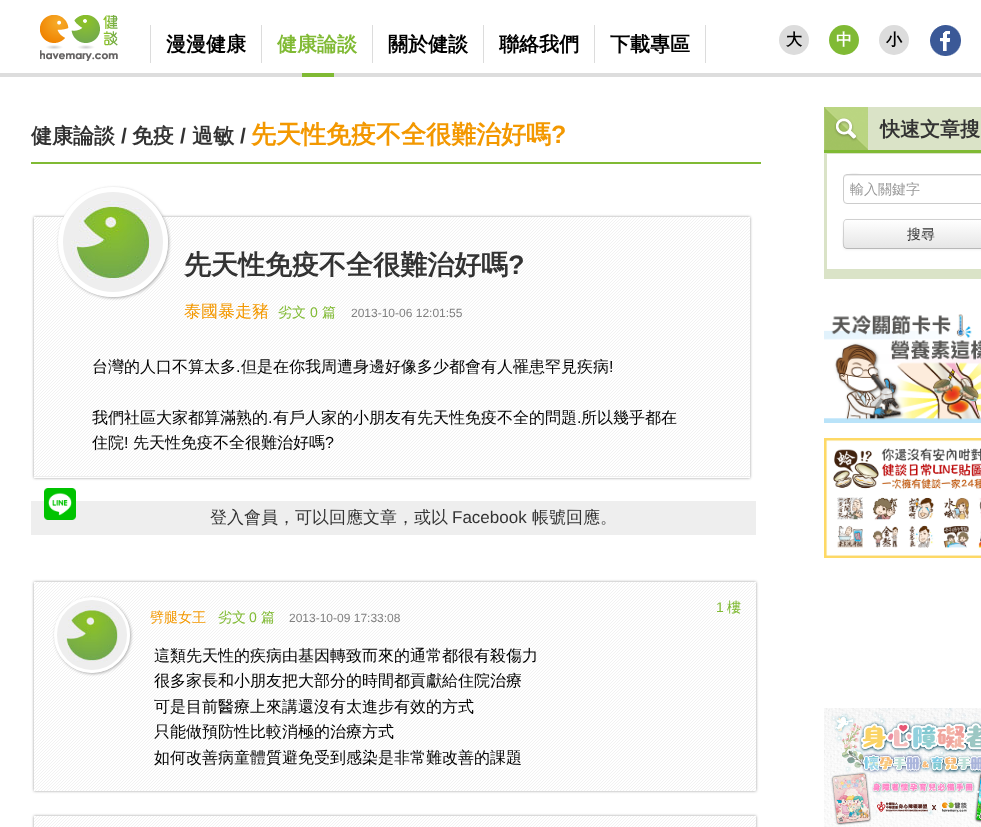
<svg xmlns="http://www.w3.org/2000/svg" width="981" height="827">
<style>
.a{font:bold 20px WenQuanYi Zen Hei;fill:#000}
.b{font:bold 20px WenQuanYi Zen Hei;fill:#80ba34}
.c{font:bold 16px WenQuanYi Zen Hei;fill:#000}
.d{font:bold 16px WenQuanYi Zen Hei;fill:#fff}
.e{font:bold 21px WenQuanYi Zen Hei;fill:#333}
.f{font:bold 21px Liberation Sans;fill:#333}
.g{font:bold 25px WenQuanYi Zen Hei;fill:#f39800}
.h{font:bold 25px Liberation Sans;fill:#f39800}
.i{font:bold 27px WenQuanYi Zen Hei;fill:#333}
.j{font:bold 27px Liberation Sans;fill:#333}
.k{font:500 17px WenQuanYi Zen Hei;fill:#f39800}
.l{font:500 14px WenQuanYi Zen Hei;fill:#80ba34}
.m{font:14px Liberation Sans;fill:#80ba34}
.n{font:12px Liberation Sans;fill:#808080}
.o{font:500 16px WenQuanYi Zen Hei;fill:#000}
.p{font:16px Liberation Sans;fill:#000}
.q{font:500 17px WenQuanYi Zen Hei;fill:#333}
.r{font:17px Liberation Sans;fill:#333}
.s{font:500 14px WenQuanYi Zen Hei;fill:#f39800}
.t{font:bold 20px WenQuanYi Zen Hei;fill:#333}
.u{font:500 14px WenQuanYi Zen Hei;fill:#999}
.v{font:500 14px WenQuanYi Zen Hei;fill:#333}
</style>
<defs>
<clipPath id="clip1"><rect x="843" y="219" width="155" height="30" rx="4"/></clipPath>
<linearGradient id="g1" gradientUnits="userSpaceOnUse" x1="921" y1="220" x2="921" y2="248"><stop offset="0" stop-color="#fff"/><stop offset="1" stop-color="#e6e6e6"/></linearGradient>
</defs>
<rect width="100%" height="100%" fill="#fff"/>
<path fill="#ddd" d="M0 73h981v4H0z"/>
<image href="1.png" x="40" y="15" width="78" height="46"/>
<path fill="#dcdcdc" d="M150 25h1v38H150z"/>
<path fill="#dcdcdc" d="M261 25h1v38H261z"/>
<path fill="#80ba34" d="M302 73h32v4H302z"/>
<path fill="#dcdcdc" d="M372 25h1v38H372z"/>
<path fill="#dcdcdc" d="M483 25h1v38H483z"/>
<path fill="#dcdcdc" d="M705 25h1v38H705z"/>
<path fill="#dcdcdc" d="M594 25h1v38H594z"/>
<circle fill="#dcdcdc" cx="794" cy="40" r="15"/>
<circle fill="#80ba34" cx="844" cy="40" r="15"/>
<circle fill="#dcdcdc" cx="894" cy="40" r="15"/>
<image href="2.png" x="930" y="25" width="31" height="31"/>
<path fill="#80ba34" d="M31 162h730v2H31z"/>
<path fill="#999" filter="blur(1.5px)" d="M34 217h716v261H34z"/>
<image href="4.png" x="34" y="217" width="716" height="259"/>
<rect fill="#aaa" filter="blur(1.5px)" x="59" y="188" width="110" height="110" rx="55"/>
<image href="3.png" x="58" y="187" width="110" height="110"/>
<circle fill="none" stroke="#fff" stroke-width="5" cx="113" cy="242" r="52.5"/>
<path fill="#eee" d="M34 476h716v1H34z"/>
<path fill="#fff" d="M34 477h716v1H34z"/>
<path fill="#eee" d="M31 501h725v34H31z"/>
<image href="5.png" x="44" y="488" width="32" height="32"/>
<path fill="#999" filter="blur(1.5px)" d="M34 582h722v209H34z"/>
<image href="6.png" x="34" y="582" width="722" height="209"/>
<rect fill="#aaa" filter="blur(1.5px)" x="55" y="598" width="76" height="76" rx="38"/>
<image href="7.png" x="54" y="597" width="76" height="76"/>
<circle fill="none" stroke="#fff" stroke-width="3" cx="92" cy="635" r="36.5"/>
<path fill="#999" filter="blur(1.5px)" d="M34 816h722v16H34z"/>
<image href="8.png" x="34" y="816" width="722" height="11"/>
<path fill="#dae3c7" d="M868 107h113v43H868z"/>
<path fill="#80ba34" d="M824 150h157v3H824z"/>
<image href="9.png" x="824" y="107" width="44" height="43"/>
<path fill="#dae3c7" d="M824 153h157v1H824z"/>
<path fill="#dae3c7" d="M827 269h154v10H827z"/>
<path fill="#dae3c7" d="M824 153h3v126H824z"/>
<path fill="#ececec" d="M847 176h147c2 0 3 1 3 3c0-2 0-3-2-4h-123c-8 0-28-5-28 4c0-2 1-3 3-3z"/>
<rect fill="none" stroke="#ccc" x="843.5" y="174.5" width="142" height="29" rx="3.5"/>
<rect fill="#0000000d" filter="blur(1px)" x="843" y="220" width="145" height="30" rx="4"/>
<rect fill="#f5f5f5" x="843" y="219" width="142" height="30" rx="4"/>
<g clip-path="url(#clip1)">
<path fill="url(#g1)" d="M843 220h138v28H843z"/>
</g>
<path fill="none" stroke="#b8b8b8" d="M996.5 247.5c-.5 .5-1.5 1-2.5 1h-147c-1 0-2-.5-2.5-1"/>
<path fill="none" stroke="#00000026" d="M844.5 247.5c-2-2-1-10.5-1-13.5v-7.5c0-2.5-.5-7 3.5-7h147c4 0 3.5 4.5 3.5 7v7.5c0 3 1 11.5-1 13.5"/>
<image href="10.png" x="824" y="314" width="157" height="109"/>
<image href="11.png" x="824" y="438" width="157" height="120"/>
<image href="12.png" x="824" y="708" width="157" height="119"/>
<text class="a" x="166" y="51">漫漫健康</text>
<text class="b" x="277" y="51">健康論談</text>
<text class="a" x="388" y="51">關於健談</text>
<text class="a" x="499" y="51">聯絡我們</text>
<text class="a" x="610" y="51">下載專區</text>
<text class="c" x="786" y="45">大</text>
<text class="d" x="836" y="45">中</text>
<text class="c" x="886" y="45">小</text>
<text class="e" x="31" y="143">健康論談</text>
<text class="f" x="121" y="143">/</text>
<text class="e" x="132" y="143">免疫</text>
<text class="f" x="180" y="143">/</text>
<text class="e" x="192" y="143">過敏</text>
<text class="f" x="240" y="143">/</text>
<text class="g" x="251" y="143">先天性免疫不全很難治好嗎</text>
<text class="h" x="551" y="143">?</text>
<text class="i" x="184" y="274">先天性免疫不全很難治好嗎</text>
<text class="j" x="508" y="274">?</text>
<text class="k" x="184" y="317">泰國暴走豬</text>
<text class="l" x="278" y="317">劣文</text>
<text class="m" x="310" y="317">0</text>
<text class="l" x="322" y="317">篇</text>
<text class="n" x="351" y="317">2013-10-06 12:01:55</text>
<text class="o" x="92" y="372">台灣的人口不算太多</text>
<text class="p" x="236" y="372">.</text>
<text class="o" x="241" y="372">但是在你我周遭身邊好像多少都會有人罹患罕見疾病</text>
<text class="p" x="609" y="372">!</text>
<text class="o" x="92" y="423">我們社區大家都算滿熟的</text>
<text class="p" x="268" y="423">.</text>
<text class="o" x="273" y="423">有戶人家的小朋友有先天性免疫不全的問題</text>
<text class="p" x="577" y="423">.</text>
<text class="o" x="581" y="423">所以幾乎都在</text>
<text class="o" x="92" y="448">住院</text>
<text class="p" x="124" y="448">!</text>
<text class="o" x="133" y="448">先天性免疫不全很難治好嗎</text>
<text class="p" x="325" y="448">?</text>
<text class="q" x="210" y="523">登入會員，可以回應文章，或以</text>
<text class="r" x="452" y="523">Facebook</text>
<text class="q" x="532" y="523">帳號回應。</text>
<text class="m" x="716" y="612">1</text>
<text class="l" x="727" y="612">樓</text>
<text class="s" x="150" y="622">劈腿女王</text>
<text class="l" x="218" y="622">劣文</text>
<text class="m" x="249" y="622">0</text>
<text class="l" x="261" y="622">篇</text>
<text class="n" x="289" y="622">2013-10-09 17:33:08</text>
<text class="o" x="154" y="661">這類先天性的疾病由基因轉致而來的通常都很有殺傷力</text>
<text class="o" x="154" y="686">很多家長和小朋友把大部分的時間都貢獻給住院治療</text>
<text class="o" x="154" y="712">可是目前醫療上來講還沒有太進步有效的方式</text>
<text class="o" x="154" y="737">只能做預防性比較消極的治療方式</text>
<text class="o" x="154" y="763">如何改善病童體質避免受到感染是非常難改善的課題</text>
<text class="t" x="880" y="136">快速文章搜</text>
<text class="u" x="850" y="194">輸入關鍵字</text>
<text class="v" x="907" y="239">搜尋</text>
</svg>
